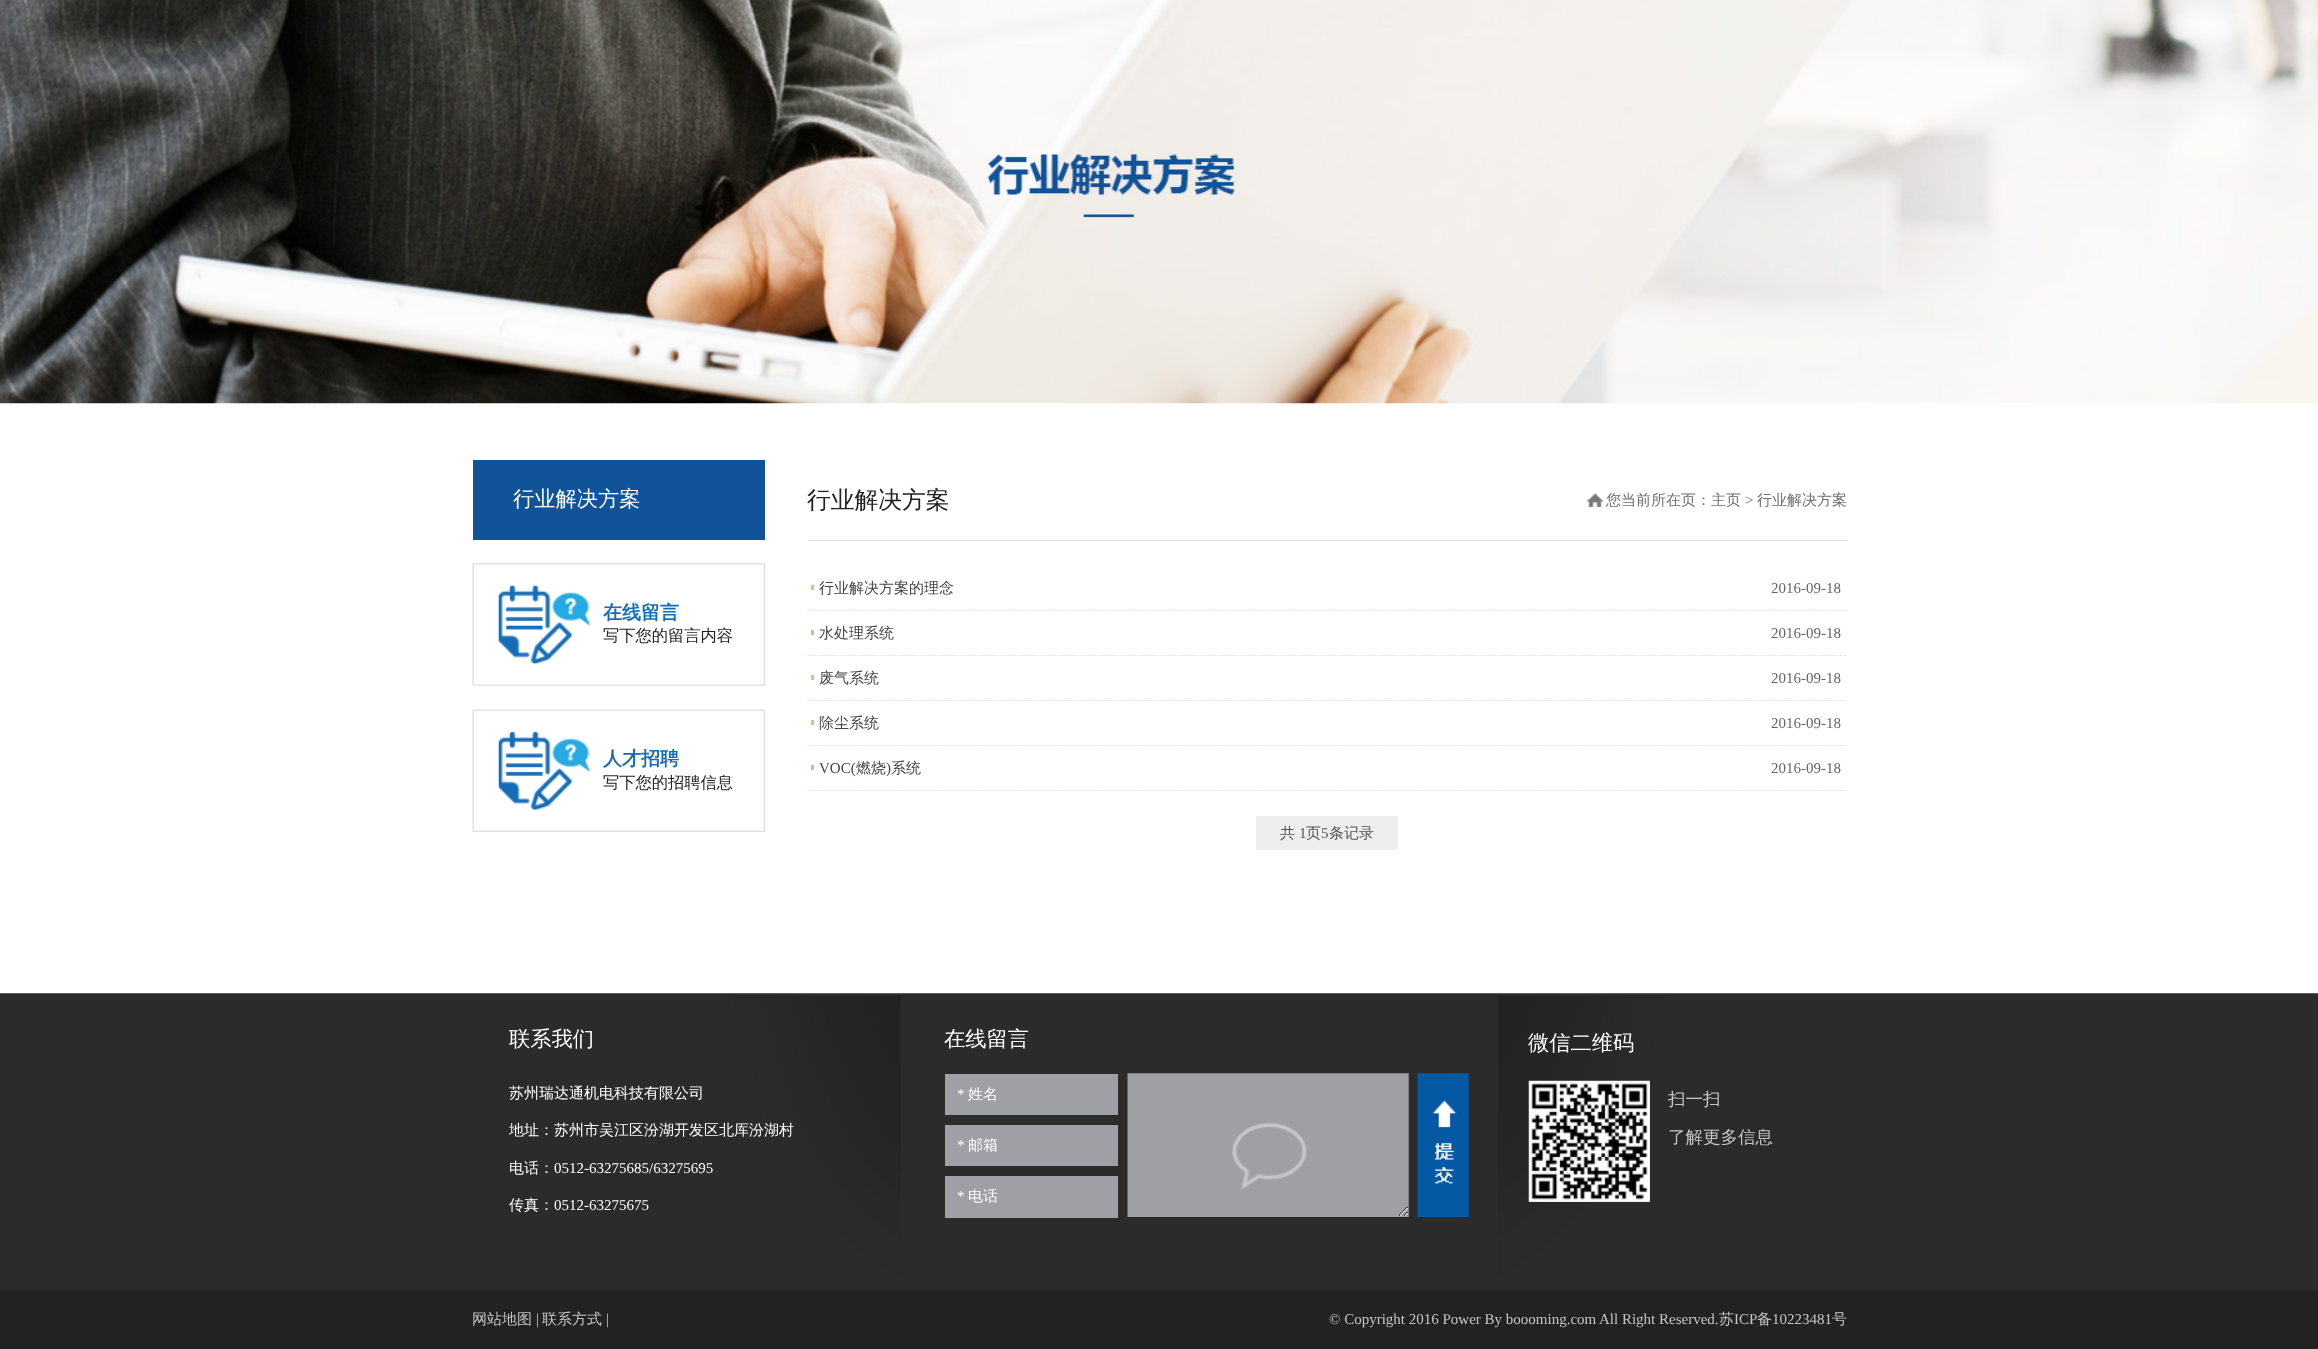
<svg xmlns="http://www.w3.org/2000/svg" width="2318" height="1349">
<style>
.a{font:500 21.25px WenQuanYi Zen Hei;fill:#fff}
.b{font:bold 19px WenQuanYi Zen Hei;fill:#166db7}
.c{font:500 16.25px WenQuanYi Zen Hei;fill:#222}
.d{font:500 23.75px WenQuanYi Zen Hei;fill:#222}
.e{font:500 15px WenQuanYi Zen Hei;fill:#6e6e6e}
.f{font:15px Liberation Serif;fill:#6e6e6e}
.g{font:500 15px WenQuanYi Zen Hei;fill:#444}
.h{font:15px Liberation Serif;fill:#666}
.i{font:15px Liberation Serif;fill:#444}
.j{font:500 15px WenQuanYi Zen Hei;fill:#555}
.k{font:15px Liberation Serif;fill:#555}
.l{font:500 15px WenQuanYi Zen Hei;fill:#fff}
.m{font:15px Liberation Serif;fill:#fff}
.n{font:500 17.5px WenQuanYi Zen Hei;fill:#c5c5c5}
.o{font:500 15px WenQuanYi Zen Hei;fill:#c5c5c5}
.p{font:15px Liberation Serif;fill:#c5c5c5}
</style>
<rect width="100%" height="100%" fill="#fff"/>
<image href="1.png" x="0" y="0" width="2318" height="404"/>
<path fill="#105399" d="M473 460h292v80H473z"/>
<image href="2.png" x="472" y="563" width="293" height="123"/>
<image href="3.png" x="472" y="709" width="293" height="123"/>
<path fill="#ddd" d="M808 540h1040v1H808z"/>
<image href="4.png" x="1586" y="493" width="18" height="14"/>
<path fill="#f1b288" d="M811 585h3v5H811z"/>
<path fill="none" stroke="#ddd" stroke-width="1.2" stroke-dasharray="1.25 1.25" d="M807.5 610.5h1040"/>
<path fill="#f1b288" d="M811 630h3v5H811z"/>
<path fill="none" stroke="#ddd" stroke-width="1.2" stroke-dasharray="1.25 1.25" d="M807.5 655.5h1040"/>
<path fill="#f1b288" d="M811 675h3v5H811z"/>
<path fill="none" stroke="#ddd" stroke-width="1.2" stroke-dasharray="1.25 1.25" d="M807.5 700.5h1040"/>
<path fill="#f1b288" d="M811 720h3v5H811z"/>
<path fill="none" stroke="#ddd" stroke-width="1.2" stroke-dasharray="1.25 1.25" d="M807.5 745.5h1040"/>
<path fill="#f1b288" d="M811 765h3v5H811z"/>
<path fill="none" stroke="#ddd" stroke-width="1.2" stroke-dasharray="1.25 1.25" d="M807.5 790.5h1040"/>
<path fill="#eee" d="M1256 816h142v34H1256z"/>
<image href="5.png" x="0" y="993" width="2318" height="356"/>
<path fill="#9ea0a5" d="M945 1074h173v41H945z"/>
<path fill="#9ea0a5" d="M945 1125h173v41H945z"/>
<path fill="#9ea0a5" d="M945 1176h173v42H945z"/>
<image href="6.png" x="1127" y="1073" width="282" height="144"/>
<image href="7.png" x="1417" y="1073" width="52" height="144"/>
<image href="8.png" x="1528" y="1080" width="122" height="122"/>
<text class="a" x="513" y="506">行业解决方案</text>
<text class="b" x="603" y="619">在线留言</text>
<text class="c" x="603" y="641">写下您的留言内容</text>
<text class="b" x="603" y="765">人才招聘</text>
<text class="c" x="603" y="788">写下您的招聘信息</text>
<text class="d" x="807" y="508">行业解决方案</text>
<text class="e" x="1606" y="505">您当前所在页：主页</text>
<text class="f" x="1745" y="505">&gt;</text>
<text class="e" x="1757" y="505">行业解决方案</text>
<text class="g" x="819" y="593">行业解决方案的理念</text>
<text class="h" x="1771" y="593">2016-09-18</text>
<text class="g" x="819" y="638">水处理系统</text>
<text class="h" x="1771" y="638">2016-09-18</text>
<text class="g" x="819" y="683">废气系统</text>
<text class="h" x="1771" y="683">2016-09-18</text>
<text class="g" x="819" y="728">除尘系统</text>
<text class="h" x="1771" y="728">2016-09-18</text>
<text class="i" x="819" y="773">VOC(</text>
<text class="g" x="856" y="773">燃烧</text>
<text class="i" x="886" y="773">)</text>
<text class="g" x="891" y="773">系统</text>
<text class="h" x="1771" y="773">2016-09-18</text>
<text class="j" x="1280" y="838">共</text>
<text class="k" x="1299" y="838">1</text>
<text class="j" x="1306" y="838">页</text>
<text class="k" x="1321" y="838">5</text>
<text class="j" x="1329" y="838">条记录</text>
<text class="a" x="509" y="1046">联系我们</text>
<text class="l" x="509" y="1098">苏州瑞达通机电科技有限公司</text>
<text class="l" x="509" y="1135">地址：苏州市吴江区汾湖开发区北厍汾湖村</text>
<text class="l" x="509" y="1173">电话：</text>
<text class="m" x="554" y="1173">0512-63275685/63275695</text>
<text class="l" x="509" y="1210">传真：</text>
<text class="m" x="554" y="1210">0512-63275675</text>
<text class="a" x="944" y="1046">在线留言</text>
<text class="m" x="957" y="1099">*</text>
<text class="l" x="968" y="1099">姓名</text>
<text class="m" x="957" y="1150">*</text>
<text class="l" x="968" y="1150">邮箱</text>
<text class="m" x="957" y="1201">*</text>
<text class="l" x="968" y="1201">电话</text>
<text class="a" x="1528" y="1050">微信二维码</text>
<text class="n" x="1668" y="1105">扫一扫</text>
<text class="n" x="1668" y="1143">了解更多信息</text>
<text class="o" x="472" y="1324">网站地图</text>
<text class="p" x="536" y="1324">|</text>
<text class="o" x="542" y="1324">联系方式</text>
<text class="p" x="606" y="1324">|</text>
<text class="p" x="1329" y="1324">© Copyright 2016 Power By boooming.com</text>
<text class="p" x="1599" y="1324">All Right Reserved.</text>
<text class="o" x="1719" y="1324">苏</text>
<text class="p" x="1734" y="1324">ICP</text>
<text class="o" x="1757" y="1324">备</text>
<text class="p" x="1772" y="1324">10223481</text>
<text class="o" x="1832" y="1324">号</text>
</svg>
